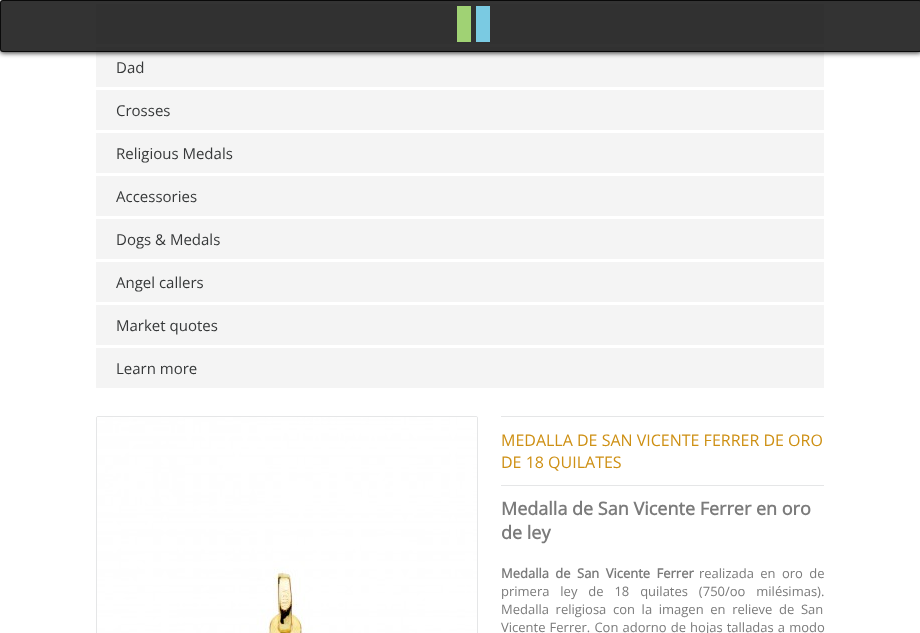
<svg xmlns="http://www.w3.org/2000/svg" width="920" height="633">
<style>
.a{font:15px Open Sans;fill:#363839}
.b{font:16px Open Sans;fill:#ce9014}
.c{font:bold 18px Open Sans;fill:#7b7b7b}
.d{font:bold 13px Open Sans;fill:#7b7b7b}
.e{font:13px Open Sans;fill:#7b7b7b}
</style>
<defs>
<clipPath id="clip1"><path d="M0 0h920v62h-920zm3 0h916c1.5 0 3 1.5 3 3v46c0 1.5-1.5 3-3 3h-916c-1.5 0-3-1.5-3-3v-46c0-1.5 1.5-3 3-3z" clip-rule="evenodd"/></clipPath>
</defs>
<rect width="100%" height="100%" fill="#fff"/>
<path fill="#f4f4f4" d="M96 0h728v1H96z"/>
<path fill="#f4f4f4" d="M96 4h728v40H96z"/>
<path fill="#f4f4f4" d="M96 47h728v40H96z"/>
<g clip-path="url(#clip1)">
<rect fill="#000000cc" filter="blur(2.5px)" y="1" width="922" height="52" rx="3"/>
</g>
<rect fill="#000000cc" width="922" height="52" rx="3"/>
<rect fill="none" stroke="#000000cc" x="0.5" y="0.5" width="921" height="51" rx="2.5"/>
<path fill="#a0d274" d="M457 6h14v36H457z"/>
<path fill="#7acae2" d="M476 6h14v36H476z"/>
<path fill="#f4f4f4" d="M96 90h728v40H96z"/>
<path fill="#f4f4f4" d="M96 133h728v40H96z"/>
<path fill="#f4f4f4" d="M96 176h728v40H96z"/>
<path fill="#f4f4f4" d="M96 219h728v40H96z"/>
<path fill="#f4f4f4" d="M96 262h728v40H96z"/>
<path fill="#f4f4f4" d="M96 305h728v40H96z"/>
<path fill="#f4f4f4" d="M96 348h728v40H96z"/>
<rect fill="none" stroke="#e5e6e7" x="96.5" y="416.5" width="381" height="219" rx="1.5"/>
<image href="1.png" x="97" y="417" width="380" height="216"/>
<path fill="#e5e6e7" d="M501 416h323v1H501z"/>
<path fill="#e5e6e7" d="M501 485h323v1H501z"/>
<text class="a" x="116" y="73">Dad</text>
<text class="a" x="116" y="116">Crosses</text>
<text class="a" x="116" y="159">Religious Medals</text>
<text class="a" x="116" y="202">Accessories</text>
<text class="a" x="116" y="245">Dogs &amp; Medals</text>
<text class="a" x="116" y="288">Angel callers</text>
<text class="a" x="116" y="331">Market quotes</text>
<text class="a" x="116" y="374">Learn more</text>
<text class="b" x="501" y="446">MEDALLA DE SAN VICENTE FERRER DE ORO</text>
<text class="b" x="501" y="468">DE 18 QUILATES</text>
<text class="c" x="501" y="515">Medalla de San Vicente Ferrer en oro</text>
<text class="c" x="501" y="539">de ley</text>
<text class="d" x="501" y="578" word-spacing="3">Medalla de</text>
<text class="d" x="577" y="578" word-spacing="3">San Vicente Ferrer</text>
<text class="e" x="699" y="578" word-spacing="3">realizada en oro de</text>
<text class="e" x="501" y="596" word-spacing="7.5">primera ley de 18 quilates (750/oo milésimas).</text>
<text class="e" x="501" y="614" word-spacing="3.25">Medalla religiosa con la imagen en relieve de San</text>
<text class="e" x="501" y="632" word-spacing="0.75">Vicente Ferrer. Con adorno de hojas talladas a modo</text>
</svg>
